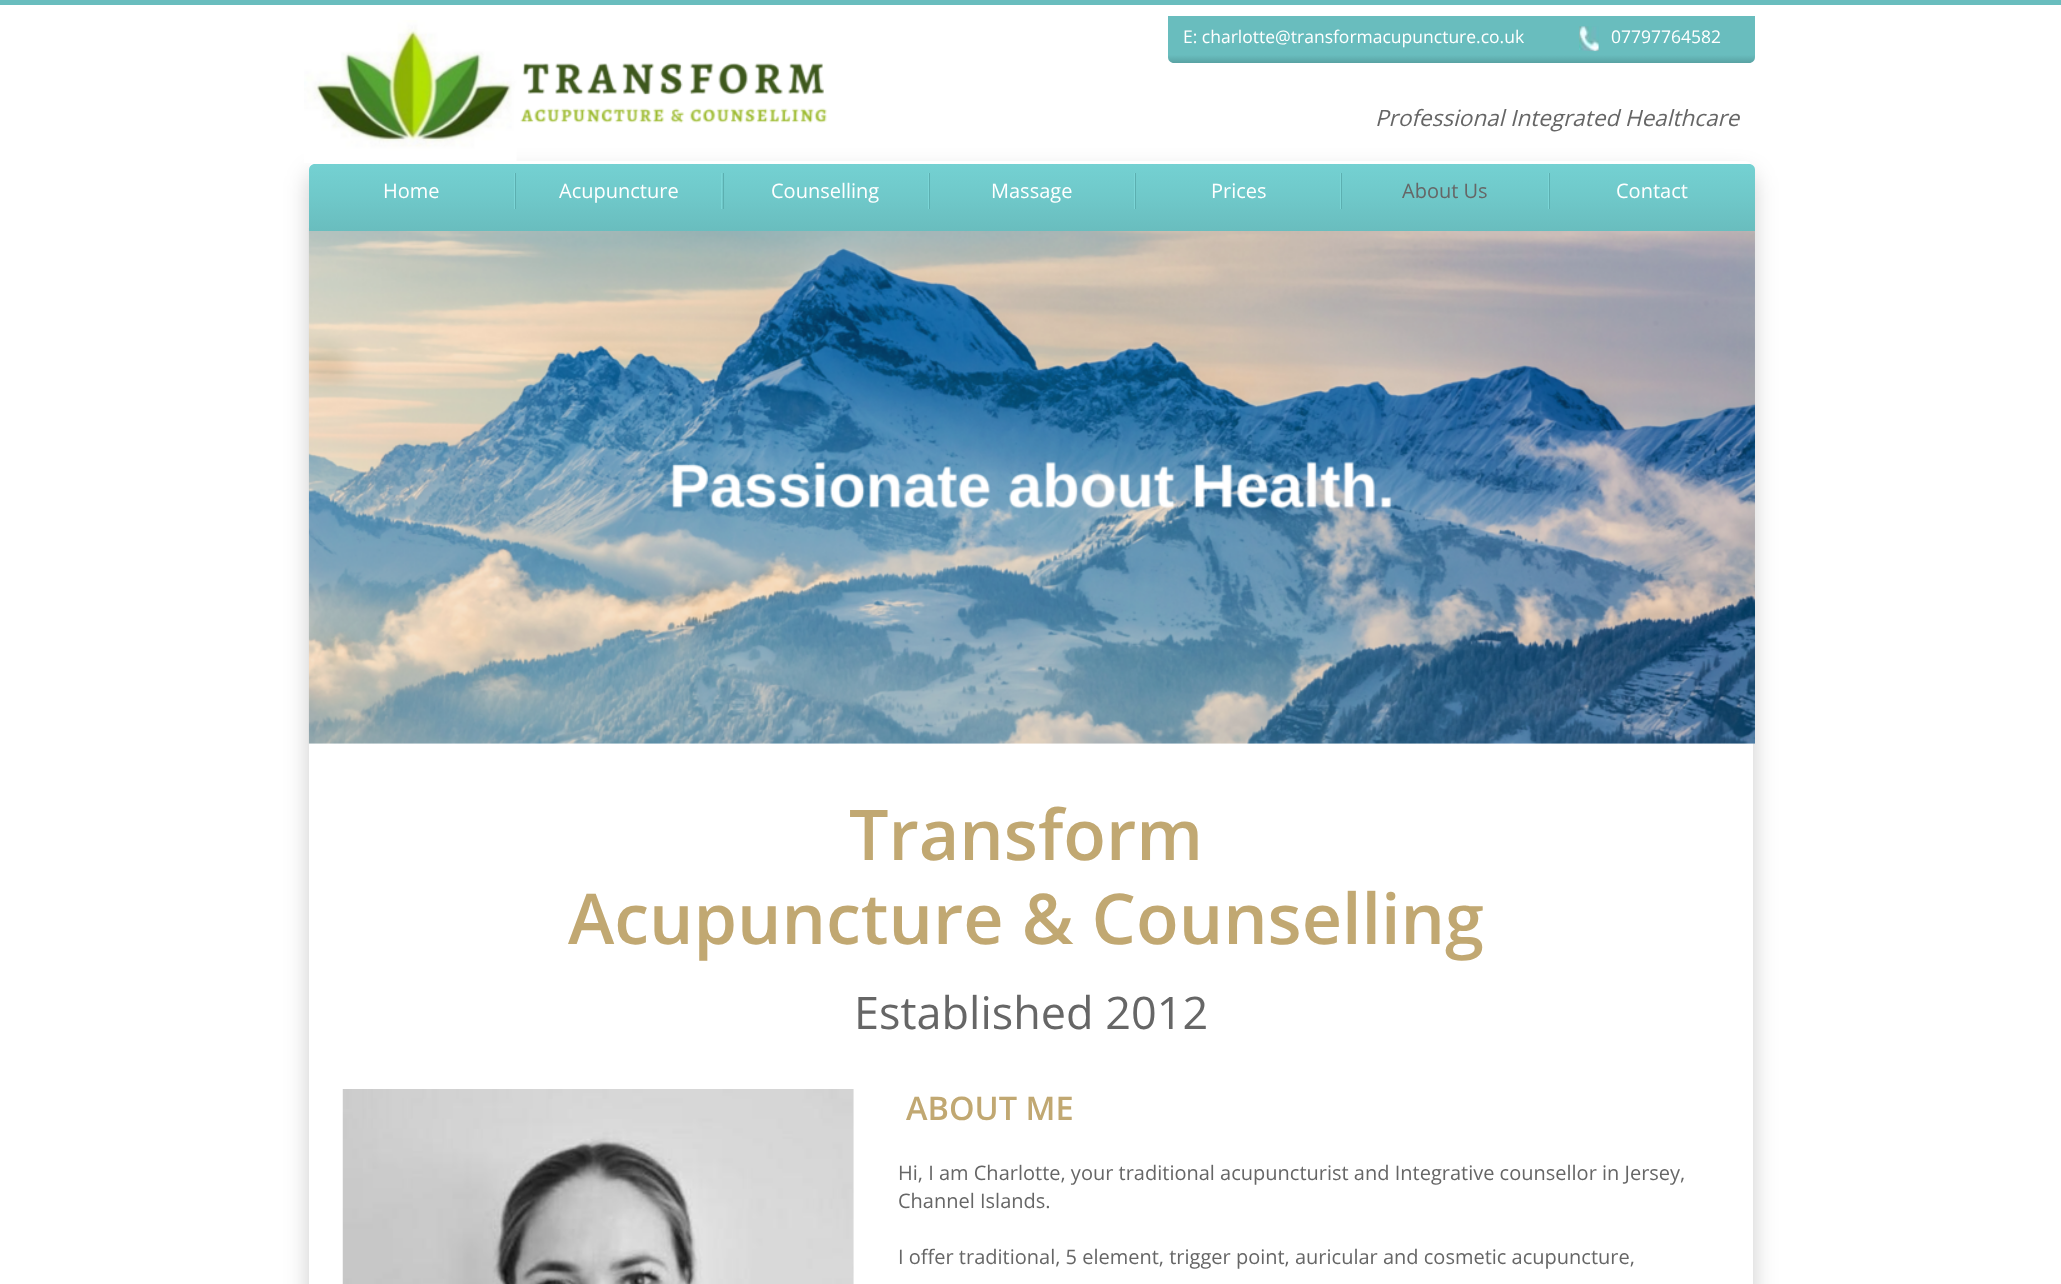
<svg xmlns="http://www.w3.org/2000/svg" width="2061" height="1284">
<style>
.a{font:17.5px Open Sans;fill:#fff}
.b{font:italic 22.5px Open Sans;fill:#666}
.c{font:20px Open Sans;fill:#fff}
.d{font:20px Open Sans;fill:#666}
.e{font:600 70px Open Sans;fill:#c1a872}
.f{font:45px Open Sans;fill:#666}
.g{font:600 32.5px Open Sans;fill:#c1a872}
</style>
<defs>
<linearGradient id="g1" gradientUnits="userSpaceOnUse" x1="1461" y1="16" x2="1461" y2="63"><stop offset="0" stop-color="#69bdbe"/><stop offset="0.83" stop-color="#69bdbe"/><stop offset="1" stop-color="#59a2a3"/></linearGradient>
<linearGradient id="g2" gradientUnits="userSpaceOnUse" x1="1032" y1="164" x2="1032" y2="231"><stop offset="0" stop-color="#74d1d2"/><stop offset="0.51" stop-color="#6fc8c9"/><stop offset="1" stop-color="#69bdbe"/></linearGradient>
</defs>
<rect width="100%" height="100%" fill="#69bdbe"/>
<path fill="#fff" d="M0 5h2061v1279H0z"/>
<rect fill="#00000033" filter="blur(12.5px)" x="309" y="174" width="1444" height="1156" rx="8"/>
<path fill="#fff" d="M317 161h1428c4.5 0 8 3.5 8 8v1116h-1444v-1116c0-4.5 3.5-8 8-8z"/>
<image href="1.png" x="304" y="20" width="523" height="143"/>
<path fill="url(#g1)" d="M1168 16h587v41c0 3.5-2.5 6-6 6h-575c-3.5 0-6-2.5-6-6z"/>
<image href="2.png" x="1579" y="26" width="20" height="26"/>
<image href="3.png" x="308" y="228" width="1447" height="516"/>
<path fill="url(#g2)" d="M315 164h1434c3.5 0 6 2.5 6 6v61h-1446v-61c0-3.5 2.5-6 6-6z"/>
<path fill="#7bd6d7" d="M514 173h1v36H514z"/>
<path fill="#7bd6d7" d="M721 173h1v36H721z"/>
<path fill="#5cafb0" d="M515 173h1v36H515z"/>
<path fill="#7bd6d7" d="M928 173h1v36H928z"/>
<path fill="#5cafb0" d="M723 173h1v36H723z"/>
<path fill="#7bd6d7" d="M1134 173h1v36H1134z"/>
<path fill="#5cafb0" d="M929 173h1v36H929z"/>
<path fill="#7bd6d7" d="M1340 173h1v36H1340z"/>
<path fill="#5cafb0" d="M1135 173h1v36H1135z"/>
<path fill="#7bd6d7" d="M1548 173h1v36H1548z"/>
<path fill="#5cafb0" d="M1341 173h1v36H1341z"/>
<path fill="#5cafb0" d="M1549 173h1v36H1549z"/>
<image href="4.png" x="342" y="1089" width="512" height="195"/>
<text class="a" x="1183" y="43">E: charlotte@transformacupuncture.co.uk</text>
<text class="a" x="1611" y="43">07797764582</text>
<text class="b" x="1375" y="126">Professional Integrated Healthcare</text>
<text class="c" x="383" y="198">Home</text>
<text class="c" x="559" y="198">Acupuncture</text>
<text class="c" x="771" y="198">Counselling</text>
<text class="c" x="991" y="198">Massage</text>
<text class="c" x="1211" y="198">Prices</text>
<text class="d" x="1402" y="198">About Us</text>
<text class="c" x="1616" y="198">Contact</text>
<text class="e" x="849" y="860">Transform</text>
<text class="e" x="568" y="944">Acupuncture &amp; Counselling</text>
<text class="f" x="854" y="1029">Established 2012</text>
<text class="g" x="906" y="1120">ABOUT ME</text>
<text class="d" x="898" y="1180">Hi, I am Charlotte, your traditional acupuncturist and Integrative counsellor in Jersey,</text>
<text class="d" x="898" y="1208">Channel Islands.</text>
<text class="d" x="898" y="1264">I offer traditional, 5 element, trigger point, auricular and cosmetic acupuncture,</text>
</svg>
